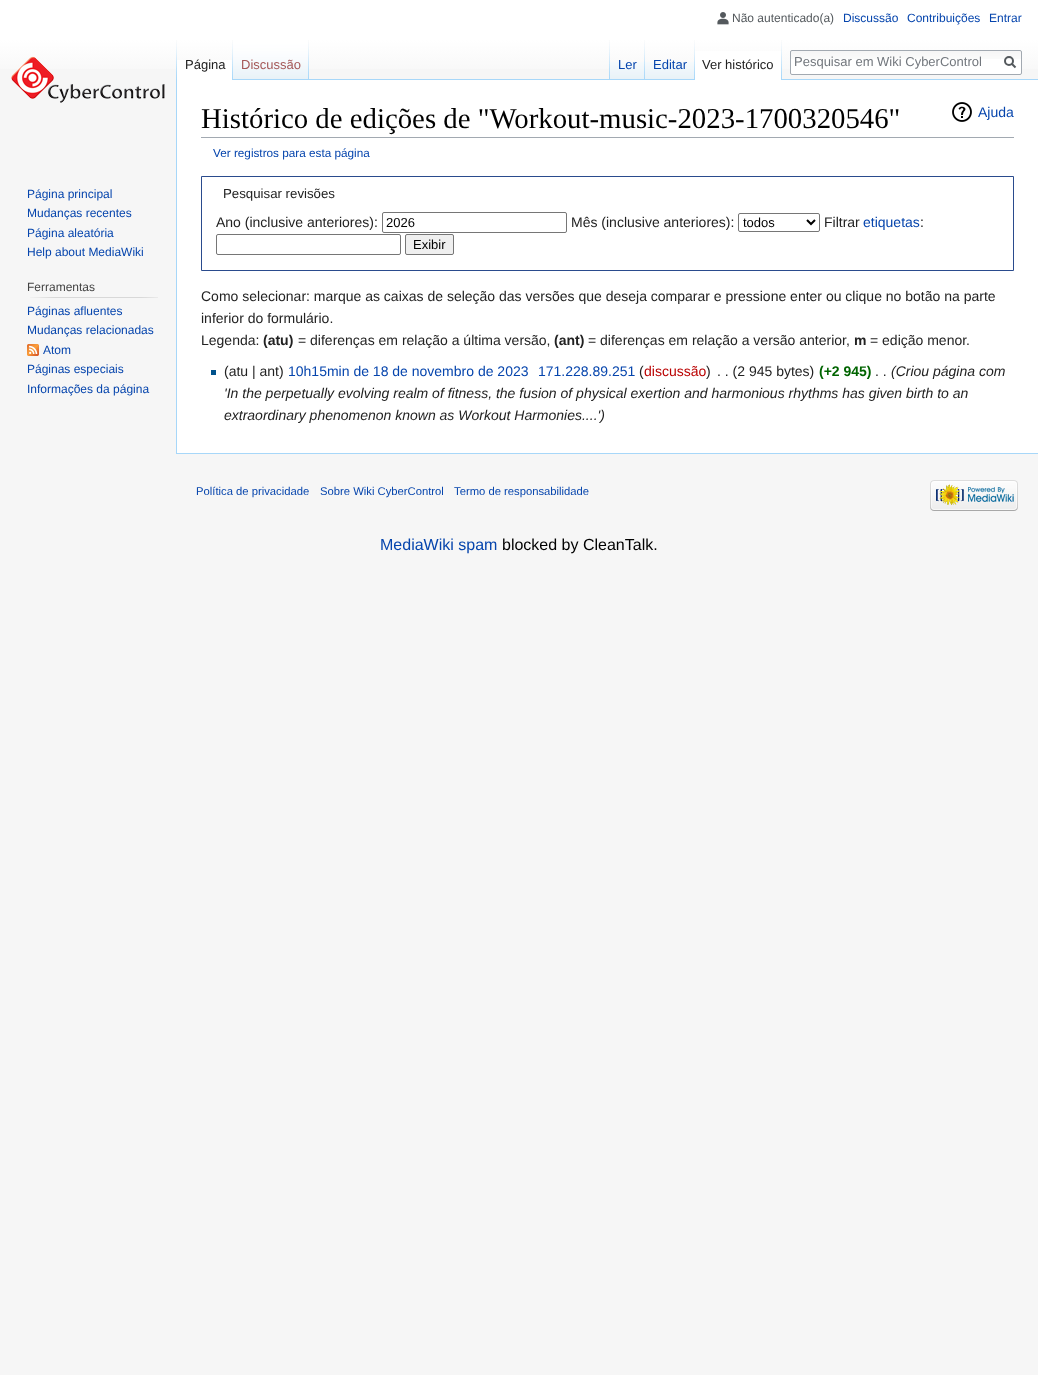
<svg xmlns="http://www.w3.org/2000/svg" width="1038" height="1375">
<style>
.a{font:12px Liberation Sans;fill:#54595d}
.b{font:12px Liberation Sans;fill:#0645ad}
.c{font:13px Liberation Sans;fill:#222}
.d{font:13px Liberation Sans;fill:#a55858}
.e{font:13px Liberation Sans;fill:#0645ad}
.f{font:13px Liberation Sans;fill:#72777d}
.g{font:12px Liberation Sans;fill:#444}
.h{font:28.8px Liberation Serif;fill:#000}
.i{font:14px Liberation Sans;fill:#0645ad}
.j{font:11.75px Liberation Sans;fill:#0645ad}
.k{font:13.25px Liberation Sans;fill:#222}
.l{font:14px Liberation Sans;fill:#222}
.m{font:13px Liberation Sans;fill:#000}
.n{font:bold 14px Liberation Sans;fill:#222}
.o{font:14px Liberation Sans;fill:#ba0000}
.p{font:bold 14px Liberation Sans;fill:#006400}
.q{font:italic 14px Liberation Sans;fill:#222}
.r{font:11.25px Liberation Sans;fill:#0645ad}
.s{font:16px Liberation Sans;fill:#0645ad}
.t{font:16px Liberation Sans;fill:#000}
</style>
<defs>
<linearGradient id="g1" gradientUnits="userSpaceOnUse" x1="519" y1="0" x2="519" y2="80"><stop offset="0.5" stop-color="#fff"/><stop offset="1" stop-color="#f6f6f6"/></linearGradient>
</defs>
<rect width="100%" height="100%" fill="#f6f6f6"/>
<path fill="url(#g1)" d="M0 0h1038v69H0z"/>
<image href="1.png" x="717" y="12" width="12" height="13"/>
<image href="2.png" x="176" y="40" width="1" height="39"/>
<path fill="#fff" d="M177 60h55v20H177z"/>
<image href="3.png" x="232" y="40" width="1" height="40"/>
<image href="4.png" x="233" y="40" width="75" height="39"/>
<image href="2.png" x="308" y="40" width="1" height="39"/>
<image href="2.png" x="609" y="40" width="1" height="39"/>
<image href="5.png" x="610" y="62" width="34" height="17"/>
<image href="2.png" x="644" y="40" width="1" height="39"/>
<image href="6.png" x="645" y="62" width="49" height="17"/>
<image href="2.png" x="694" y="40" width="1" height="39"/>
<path fill="#a7d7f9" d="M233 79h805v1H233z"/>
<path fill="#fff" d="M695 51h86v29H695z"/>
<image href="3.png" x="781" y="40" width="1" height="40"/>
<rect fill="#fff" x="790" y="50" width="232" height="25" rx="2"/>
<image href="7.png" x="790" y="51" width="232" height="8"/>
<rect fill="none" stroke="#a2a9b1" x="790.5" y="50.5" width="231" height="24" rx="1.5"/>
<path fill="none" stroke="#54595d" stroke-width="2" d="M1015.5 67.5l-4-4"/>
<circle fill="none" stroke="#54595d" stroke-width="2" cx="1009" cy="61" r="4"/>
<image href="8.png" x="11" y="56" width="154" height="47"/>
<image href="9.png" x="30" y="297" width="128" height="1"/>
<image href="10.png" x="27" y="344" width="12" height="12"/>
<path fill="#fff" d="M177 80h861v373H177z"/>
<path fill="#a7d7f9" d="M176 453h862v1H176z"/>
<path fill="#a7d7f9" d="M176 79h1v375H176z"/>
<path fill="#a2a9b1" d="M201 137h813v1H201z"/>
<image href="11.png" x="952" y="102" width="20" height="20"/>
<path fill="none" stroke="#2a4b8d" d="M201.5 176.5h812v94H201.5z"/>
<rect fill="none" stroke="#767676" x="382.5" y="212.5" width="184" height="20" rx="1.5"/>
<rect fill="none" stroke="#767676" x="738.5" y="213.5" width="81" height="18" rx="1.5"/>
<path fill="none" stroke="#000" stroke-width="2" d="M807 220l4 4l4-4"/>
<rect fill="none" stroke="#767676" x="216.5" y="234.5" width="184" height="20" rx="1.5"/>
<rect fill="#efefef" stroke="#767676" x="405.5" y="234.5" width="48" height="20" rx="1.5"/>
<path fill="#00528c" d="M211 370h5v5H211z"/>
<image href="12.png" x="930" y="480" width="88" height="31"/>
<text class="a" x="732" y="22">Não autenticado(a)</text>
<text class="b" x="843" y="22">Discussão</text>
<text class="b" x="907" y="22">Contribuições</text>
<text class="b" x="989" y="22">Entrar</text>
<text class="c" x="185" y="69">Página</text>
<text class="d" x="241" y="69">Discussão</text>
<text class="e" x="618" y="69">Ler</text>
<text class="e" x="653" y="69">Editar</text>
<text class="c" x="702" y="69">Ver histórico</text>
<text class="f" x="794" y="66">Pesquisar em Wiki CyberControl</text>
<text class="b" x="27" y="198">Página principal</text>
<text class="b" x="27" y="217">Mudanças recentes</text>
<text class="b" x="27" y="237">Página aleatória</text>
<text class="b" x="27" y="256">Help about MediaWiki</text>
<text class="g" x="27" y="291">Ferramentas</text>
<text class="b" x="27" y="315">Páginas afluentes</text>
<text class="b" x="27" y="334">Mudanças relacionadas</text>
<text class="b" x="43" y="354">Atom</text>
<text class="b" x="27" y="373">Páginas especiais</text>
<text class="b" x="27" y="393">Informações da página</text>
<text class="h" x="201" y="128">Histórico de edições de "Workout-music-2023-1700320546"</text>
<text class="i" x="978" y="117">Ajuda</text>
<text class="j" x="213" y="157">Ver registros para esta página</text>
<text class="k" x="223" y="198">Pesquisar revisões</text>
<text class="l" x="216" y="227">Ano (inclusive anteriores):</text>
<text class="m" x="386" y="227">2026</text>
<text class="l" x="571" y="227">Mês (inclusive anteriores):</text>
<text class="m" x="743" y="227">todos</text>
<text class="l" x="824" y="227">Filtrar</text>
<text class="i" x="863" y="227">etiquetas</text>
<text class="l" x="920" y="227">:</text>
<text class="m" x="413" y="249">Exibir</text>
<text class="l" x="201" y="301">Como selecionar: marque as caixas de seleção das versões que deseja comparar e pressione enter ou clique no botão na parte</text>
<text class="l" x="201" y="323">inferior do formulário.</text>
<text class="l" x="201" y="345">Legenda:</text>
<text class="n" x="263" y="345">(atu)</text>
<text class="l" x="298" y="345">= diferenças em relação a última versão,</text>
<text class="n" x="554" y="345">(ant)</text>
<text class="l" x="588" y="345">= diferenças em relação a versão anterior,</text>
<text class="n" x="854" y="345">m</text>
<text class="l" x="870" y="345">= edição menor.</text>
<text class="l" x="224" y="376">(atu | ant)</text>
<text class="i" x="288" y="376">10h15min de 18 de novembro de 2023</text>
<text class="i" x="538" y="376">171.228.89.251</text>
<text class="l" x="639" y="376">(</text>
<text class="o" x="644" y="376">discussão</text>
<text class="l" x="706" y="376">)</text>
<text class="l" x="717" y="376">. . (2 945 bytes)</text>
<text class="p" x="819" y="376">(+2 945)</text>
<text class="l" x="875" y="376">. .</text>
<text class="q" x="891" y="376">(Criou página com</text>
<text class="q" x="224" y="398">'In the perpetually evolving realm of fitness, the fusion of physical exertion and harmonious rhythms has given birth to an</text>
<text class="q" x="224" y="420">extraordinary phenomenon known as Workout Harmonies....')</text>
<text class="r" x="196" y="495">Política de privacidade</text>
<text class="r" x="320" y="495">Sobre Wiki CyberControl</text>
<text class="r" x="454" y="495">Termo de responsabilidade</text>
<text class="s" x="380" y="550">MediaWiki spam</text>
<text class="t" x="502" y="550">blocked by CleanTalk.</text>
</svg>
